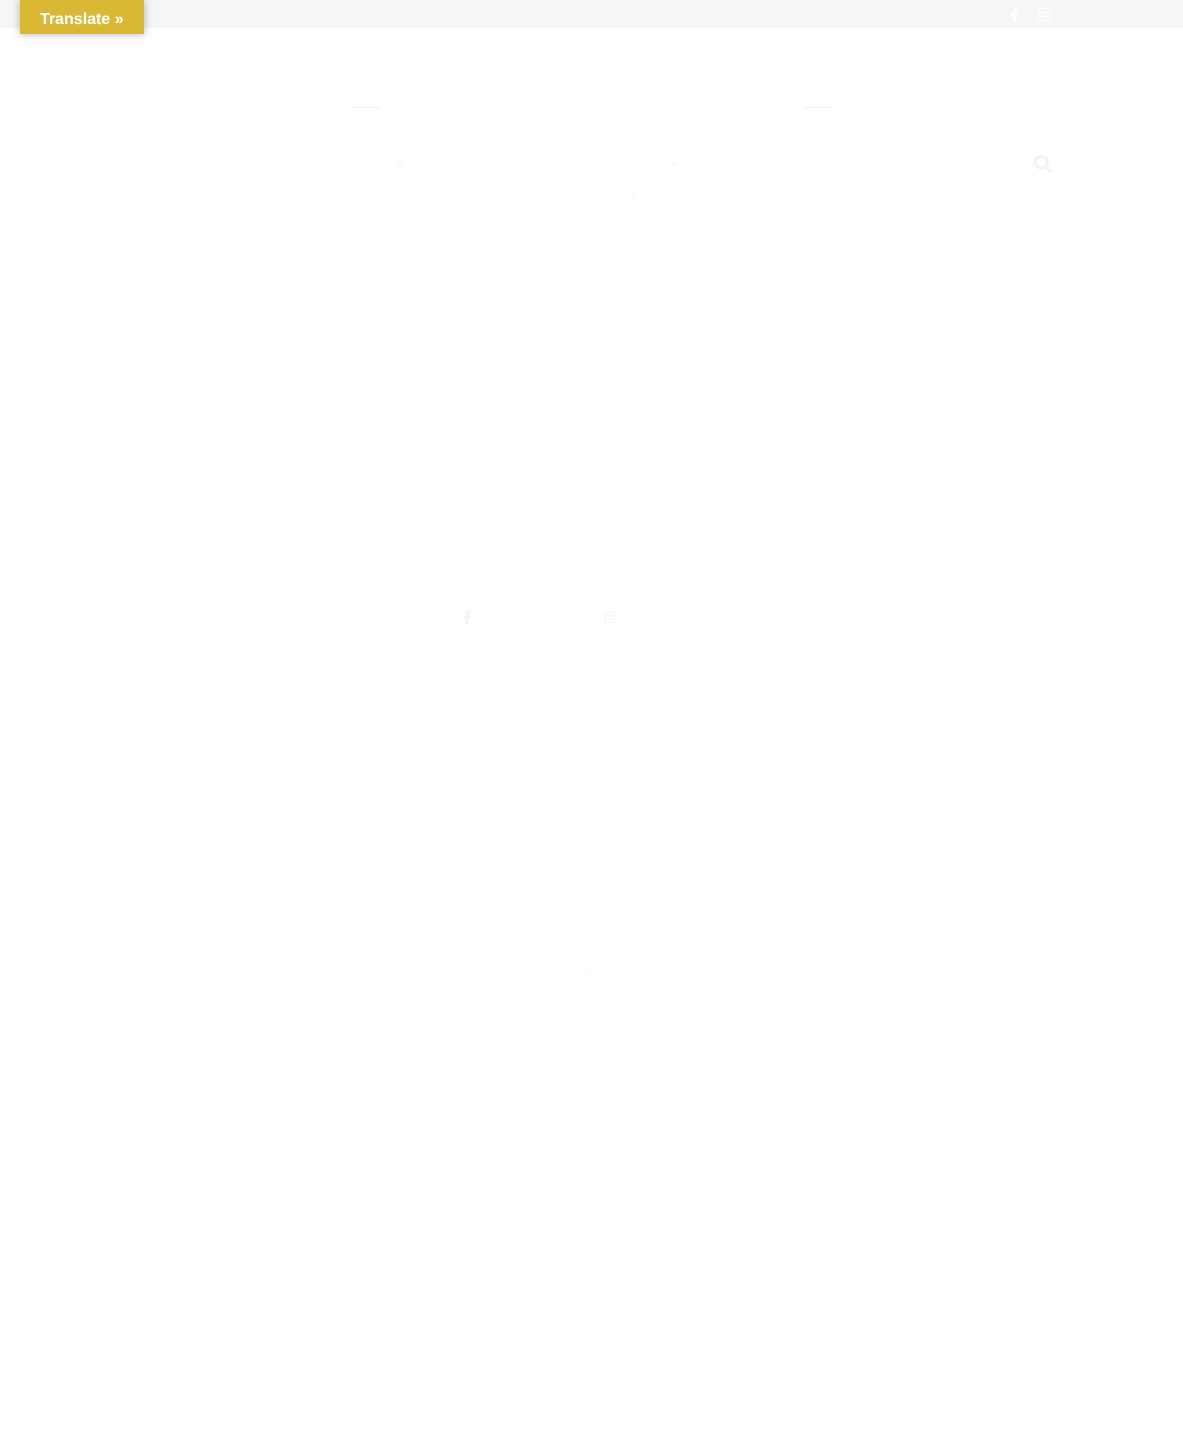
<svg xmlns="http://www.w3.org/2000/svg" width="1183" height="1440">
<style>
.a{font:bold 16px Liberation Sans;fill:#fff}
</style>
<rect width="100%" height="100%" fill="#fff"/>
<path fill="#f6f6f6" d="M0 0h1183v28H0z"/>
<image href="1.png" x="1010" y="7" width="9" height="15"/>
<image href="2.png" x="1038" y="8" width="14" height="13"/>
<path fill="#f2f2f2" d="M350 107h30v1H350z"/>
<path fill="#f2f2f2" d="M803 107h30v1H803z"/>
<path fill="#fdfbf5" d="M396.5 164.5l3.5-3.5l3.5 3.5l-3.5 3.5z"/>
<path fill="#fdfbf5" d="M671 164.5l3.5-3.5l3.5 3.5l-3.5 3.5z"/>
<path fill="#fdfbf5" d="M1029.5 164.5l3.5-3.5l3.5 3.5l-3.5 3.5z"/>
<path fill="#fdfbf5" d="M629 197.5l4-3.5l3.5 3.5l-3.5 3.5z"/>
<image href="3.png" x="1034" y="155" width="18" height="18"/>
<path fill="#fdfbf5" d="M901 442h84v1H901z"/>
<image href="4.png" x="463" y="611" width="8" height="13"/>
<image href="5.png" x="605" y="611" width="12" height="13"/>
<image href="6.png" x="585" y="970" width="12" height="8"/>
<path fill="#0000004d" filter="blur(4.5px)" d="M20 0h124v34H20z"/>
<path fill="#dbb736" d="M20 0h124v34H20z"/>
<text class="a" x="40" y="24">Translate »</text>
</svg>
